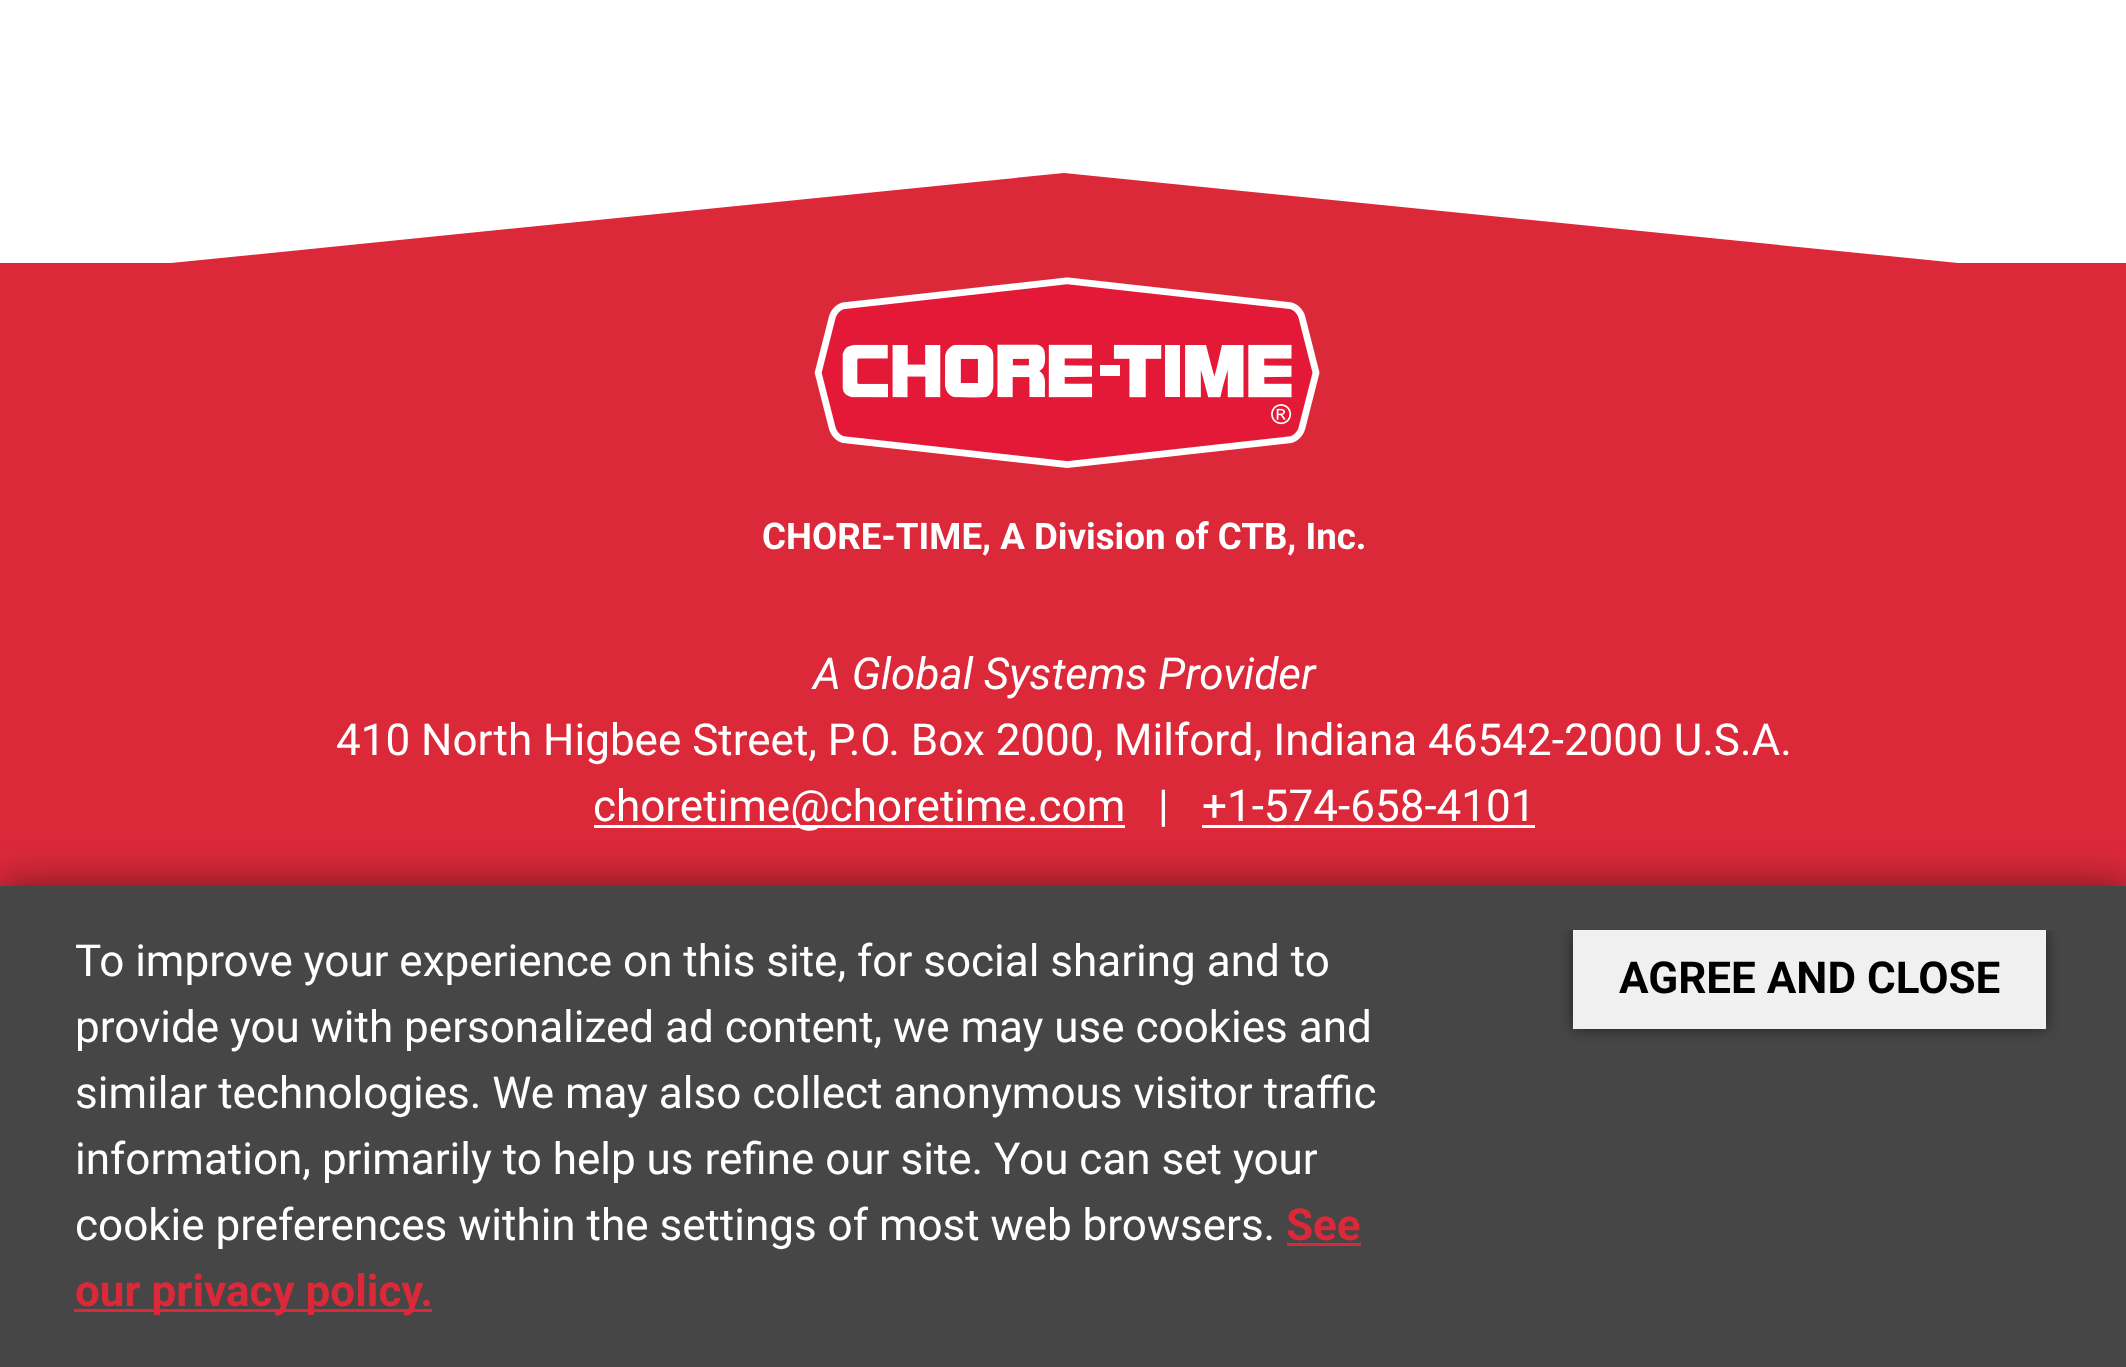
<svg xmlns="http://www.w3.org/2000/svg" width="2126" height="1367">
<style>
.a{font:bold 36.7px Roboto;fill:#fff}
.b{font:italic 44px Roboto;fill:#fff}
.c{font:44px Roboto;fill:#fff}
.d{font:bold 44px Roboto;fill:#db293a}
.e{font:bold 44px Roboto;fill:#000}
</style>
<defs>
<clipPath id="clip1"><path d="M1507 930h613v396H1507z"/></clipPath>
</defs>
<rect width="100%" height="100%" fill="#fff"/>
<path fill="#db293a" d="M0 173h2126v713H0z"/>
<path fill="#fff" d="M0 173h1064l-893 90h-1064z"/>
<path fill="#fff" d="M1064 173h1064l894 90h-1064z"/>
<image href="1.png" x="814" y="277" width="506" height="191"/>
<path fill="#fff" d="M594 825h531v3H594z"/>
<path fill="#fff" d="M1202 825h333v3H1202z"/>
<path fill="#00000080" filter="blur(20.5px)" d="M0 886h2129v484H0z"/>
<path fill="#464646" d="M0 886h2126v481H0z"/>
<path fill="#db293a" d="M1287 1243h74v3H1287z"/>
<path fill="#db293a" d="M74 1309h358v3H74z"/>
<g clip-path="url(#clip1)">
<path fill="#00000080" filter="blur(7px)" d="M1573 930h473v99H1573z"/>
</g>
<path fill="#f0f0f0" d="M1573 930h473v99H1573z"/>
<text class="a" x="762" y="549">CHORE-TIME, A Division of CTB, Inc.</text>
<text class="b" x="813" y="689">A Global Systems Provider</text>
<text class="c" x="336" y="755">410 North Higbee Street, P.O. Box 2000, Milford, Indiana 46542-2000 U.S.A.</text>
<text class="c" x="593" y="821">choretime@choretime.com</text>
<text class="c" x="1158" y="821">|</text>
<text class="c" x="1202" y="821">+1-574-658-4101</text>
<text class="c" x="75" y="976">To improve your experience on this site, for social sharing and to</text>
<text class="c" x="75" y="1042">provide you with personalized ad content, we may use cookies and</text>
<text class="c" x="75" y="1108">similar technologies. We may also collect anonymous visitor traffic</text>
<text class="c" x="75" y="1174">information, primarily to help us refine our site. You can set your</text>
<text class="c" x="75" y="1240">cookie preferences within the settings of most web browsers.</text>
<text class="d" x="1286" y="1240">See</text>
<text class="d" x="75" y="1306">our privacy policy.</text>
<text class="e" x="1619" y="993">AGREE AND CLOSE</text>
</svg>
